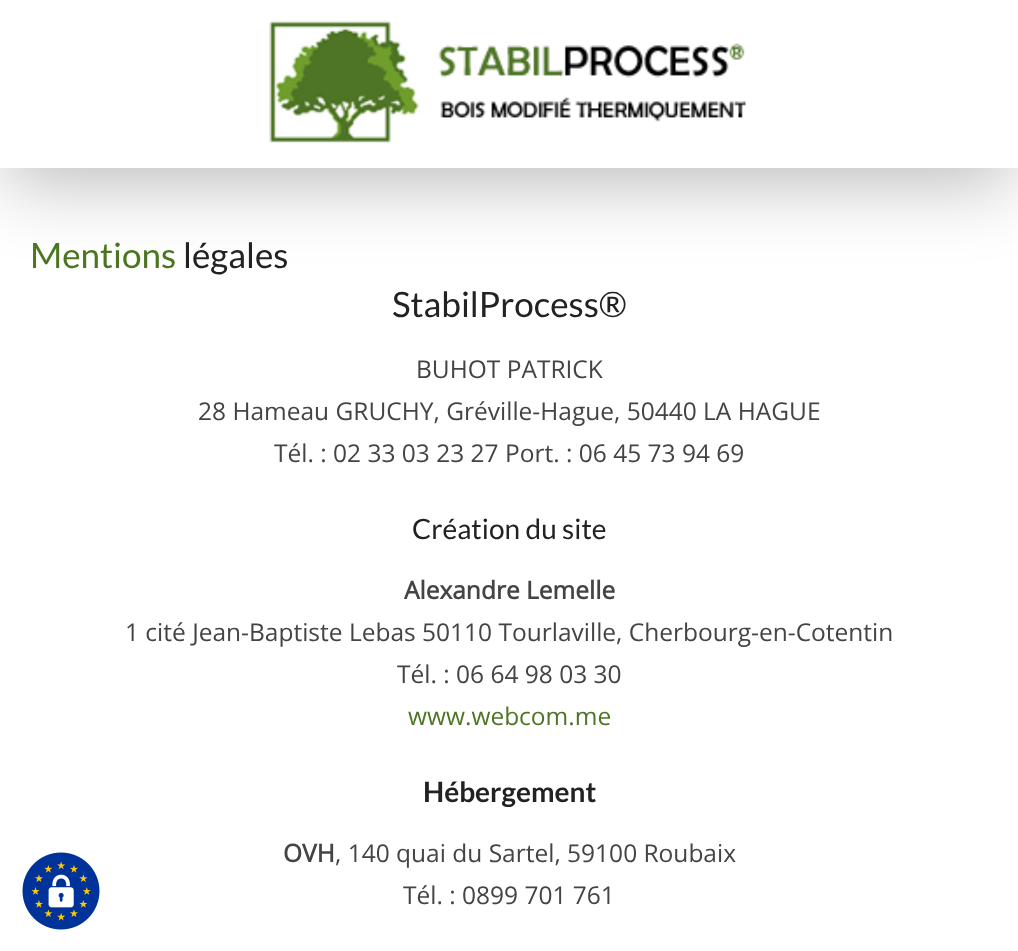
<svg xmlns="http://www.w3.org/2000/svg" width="1018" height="951">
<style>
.a{font:35px Lato;fill:#4c751f}
.b{font:35px Lato;fill:#222}
.c{font:24.5px Open Sans;fill:#444}
.d{font:28px Lato;fill:#222}
.e{font:bold 24.5px Open Sans;fill:#444}
.f{font:24.5px Open Sans;fill:#4e7526}
.g{font:bold 28px Lato;fill:#222}
</style>
<rect width="100%" height="100%" fill="#fff"/>
<path fill="#00000045" filter="blur(37px)" d="M5 25h1008v157H5z"/>
<path fill="#fff" d="M0 0h1018v168H0z"/>
<image href="1.png" x="269" y="20" width="477" height="123"/>
<image href="2.png" x="22" y="852" width="78" height="78"/>
<text class="a" x="30" y="268">Mentions</text>
<text class="b" x="183" y="268">légales</text>
<text class="b" x="392" y="317">StabilProcess®</text>
<text class="c" x="416" y="378">BUHOT PATRICK</text>
<text class="c" x="198" y="420">28 Hameau GRUCHY, Gréville-Hague, 50440 LA HAGUE</text>
<text class="c" x="274" y="462">Tél. : 02 33 03 23 27 Port. : 06 45 73 94 69</text>
<text class="d" x="412" y="539">Création du site</text>
<text class="e" x="404" y="599">Alexandre Lemelle</text>
<text class="c" x="125" y="641">1 cité Jean-Baptiste Lebas 50110 Tourlaville, Cherbourg-en-Cotentin</text>
<text class="c" x="397" y="683">Tél. : 06 64 98 03 30</text>
<text class="f" x="408" y="725">www.webcom.me</text>
<text class="g" x="423" y="802">Hébergement</text>
<text class="e" x="283" y="862">OVH</text>
<text class="c" x="335" y="862">, 140 quai du Sartel, 59100 Roubaix</text>
<text class="c" x="403" y="904">Tél. : 0899 701 761</text>
</svg>
